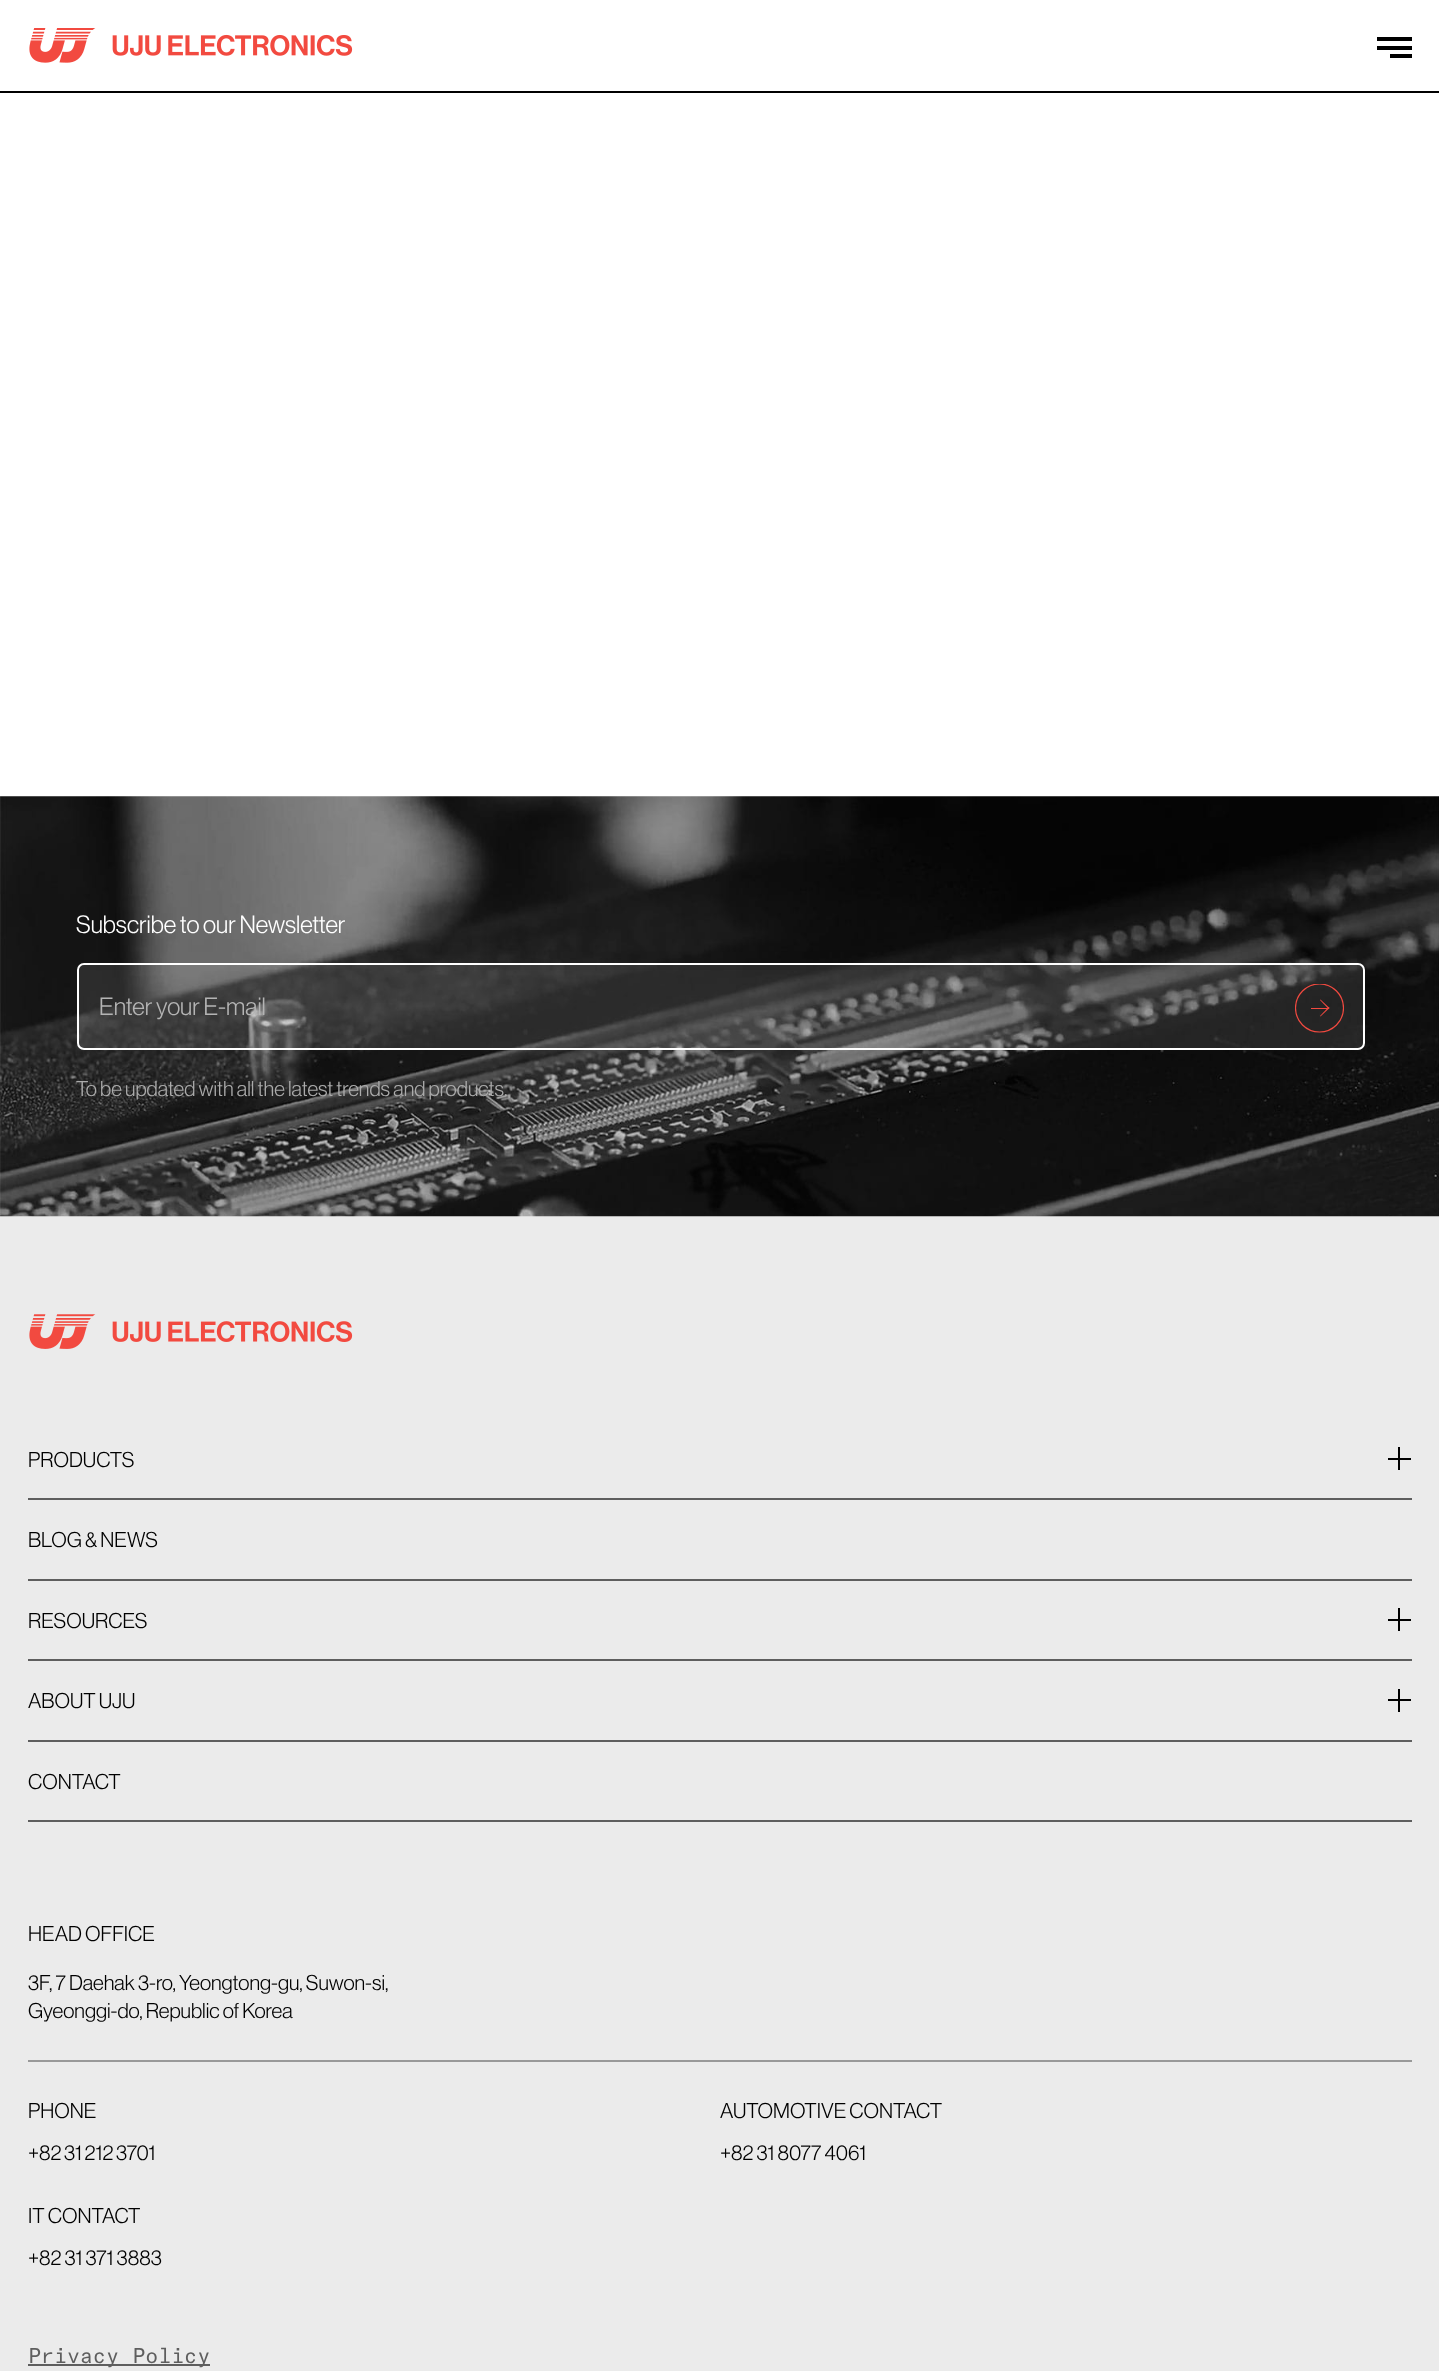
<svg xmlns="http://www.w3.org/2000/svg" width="1439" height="2371">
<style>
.a{font:24.5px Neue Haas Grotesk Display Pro;fill:#fff}
.b{font:24.5px Neue Haas Grotesk Display Pro;fill:#b4b4b4}
.c{font:21px Neue Haas Grotesk Display Pro;fill:#ababab}
.d{font:21px Neue Haas Grotesk Display Pro;fill:#000}
.e{font:21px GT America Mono;fill:#5e5e5e}
</style>
<defs>
<clipPath id="clip1"><path d="M1295 984h49v49H1295z"/></clipPath>
</defs>
<rect width="100%" height="100%" fill="#fff"/>
<image href="1.png" x="29" y="28" width="324" height="35"/>
<path fill="#000" d="M1377 37h35v4H1377z"/>
<path fill="#000" d="M1377 46h35v4H1377z"/>
<path fill="#000" d="M1390 54h22v4H1390z"/>
<path fill="#000" d="M0 91h1439v2H0z"/>
<path fill="#ebebeb" d="M0 1216h1439v1155H0z"/>
<image href="2.png" x="0" y="796" width="1439" height="421"/>
<rect fill="#ffffff1a" stroke="#fff" stroke-width="2" x="78" y="964" width="1286" height="85" rx="6"/>
<g clip-path="url(#clip1)">
<circle fill="none" stroke="#f24a40" stroke-width="1.2" cx="1319.5" cy="1008" r="24"/>
</g>
<path fill="#f24a40" fill-rule="evenodd" d="M1329.5 1008l-1-1l-8.5 9l.5 .5z"/>
<path fill="#f24a40" d="M1311 1008h18v1H1311z"/>
<path fill="#f24a40" fill-rule="evenodd" d="M1328.5 1009l1-1l-9-8.5l-.5 .5z"/>
<image href="3.png" x="29" y="1314" width="324" height="35"/>
<path fill="#5e5e5e" d="M28 1498h1384v2H28z"/>
<path fill="#000" d="M1388 1458h23v2H1388z"/>
<path fill="#000" d="M1398 1447h2v23H1398z"/>
<path fill="#5e5e5e" d="M28 1579h1384v2H28z"/>
<path fill="#5e5e5e" d="M28 1659h1384v2H28z"/>
<path fill="#000" d="M1388 1619h23v2H1388z"/>
<path fill="#000" d="M1398 1608h2v23H1398z"/>
<path fill="#5e5e5e" d="M28 1740h1384v2H28z"/>
<path fill="#000" d="M1388 1699h23v2H1388z"/>
<path fill="#000" d="M1398 1689h2v23H1398z"/>
<path fill="#5e5e5e" d="M28 1820h1384v2H28z"/>
<path fill="#999" d="M28 2060h1384v2H28z"/>
<path fill="#5e5e5e" d="M28 2364h182v2H28z"/>
<text class="a" x="76" y="933">Subscribe to our Newsletter</text>
<text class="b" x="99" y="1015">Enter your E-mail</text>
<text class="c" x="76" y="1096">To be updated with all the latest trends and products.</text>
<text class="d" x="28" y="1467">PRODUCTS</text>
<text class="d" x="28" y="1547">BLOG &amp; NEWS</text>
<text class="d" x="28" y="1628">RESOURCES</text>
<text class="d" x="28" y="1708">ABOUT UJU</text>
<text class="d" x="28" y="1789">CONTACT</text>
<text class="d" x="28" y="1941">HEAD OFFICE</text>
<text class="d" x="28" y="1990">3F, 7 Daehak 3-ro, Yeongtong-gu, Suwon-si,</text>
<text class="d" x="28" y="2018">Gyeonggi-do, Republic of Korea</text>
<text class="d" x="28" y="2118">PHONE</text>
<text class="d" x="28" y="2160" word-spacing="-0.5">+82 31 212 3701</text>
<text class="d" x="720" y="2118">AUTOMOTIVE CONTACT</text>
<text class="d" x="720" y="2160">+82 31 8077 4061</text>
<text class="d" x="28" y="2223">IT CONTACT</text>
<text class="d" x="28" y="2265">+82 31 371 3883</text>
<text class="e" x="28" y="2363">Privacy Policy</text>
</svg>
